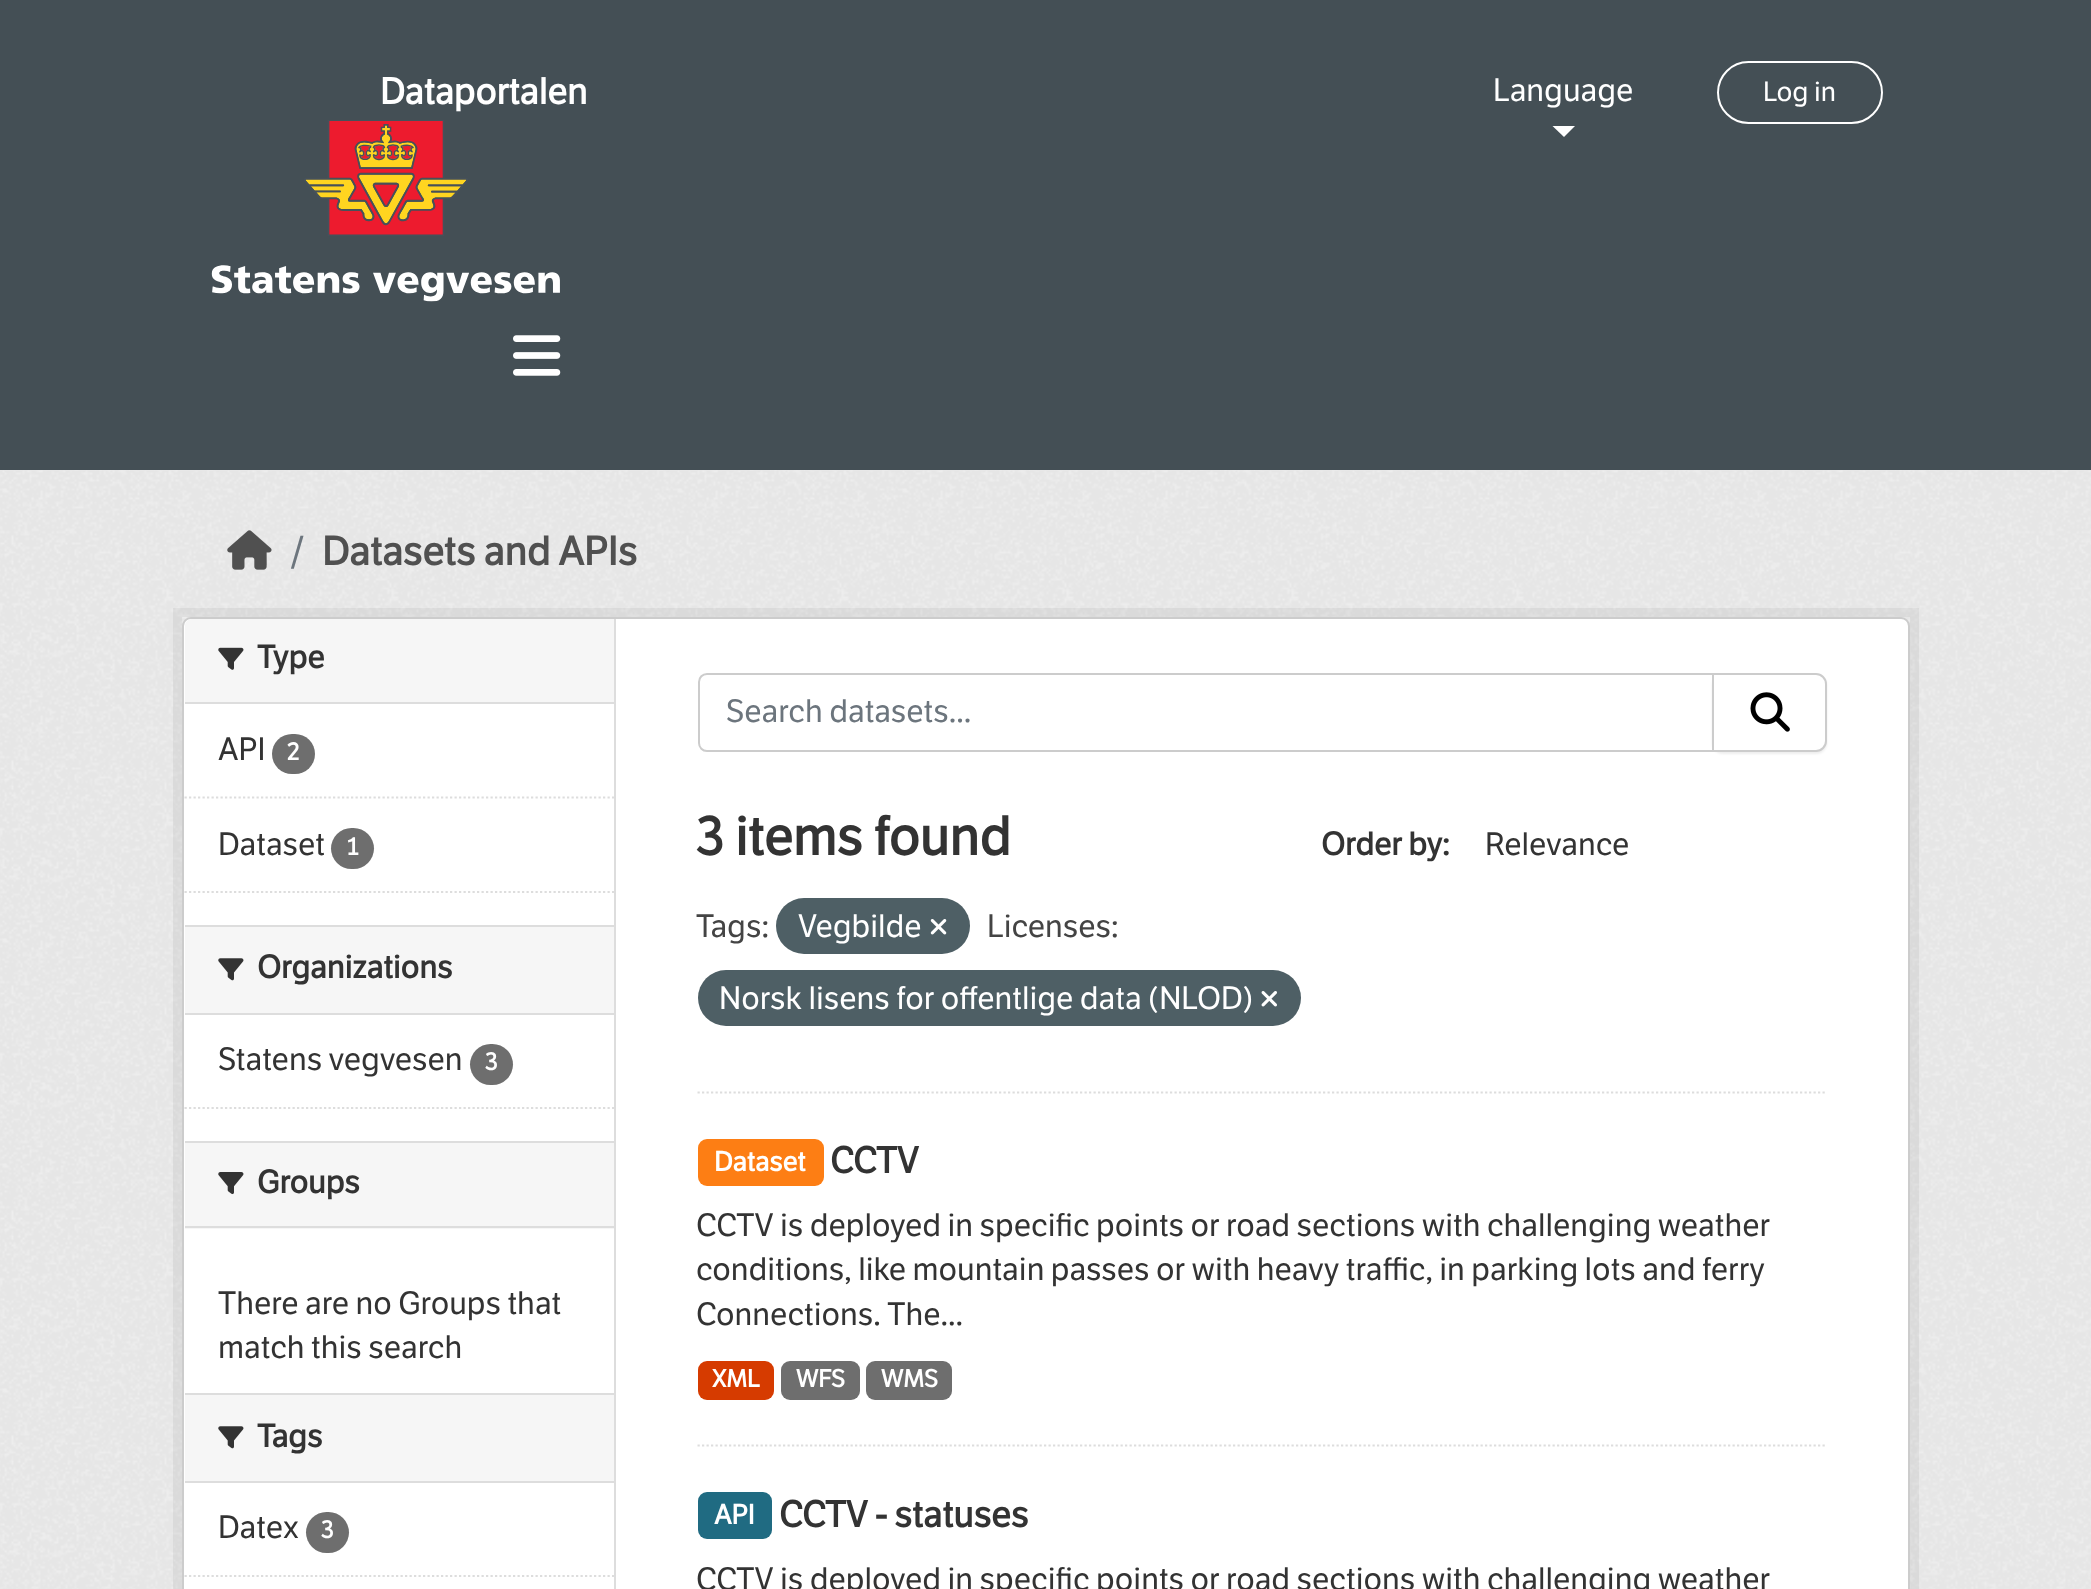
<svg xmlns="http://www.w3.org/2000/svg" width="2091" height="1589">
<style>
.a{font:bold 36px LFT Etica;fill:#fff}
.b{font:31.5px LFT Etica;fill:#fff}
.c{font:27px LFT Etica;fill:#fff}
.d{font:39.5px LFT Etica;fill:#6c757d}
.e{font:bold 39.5px LFT Etica;fill:#505050}
.f{font:bold 31.5px LFT Etica;fill:#333}
.g{font:31.5px LFT Etica;fill:#333}
.h{font:bold 24px LFT Etica;fill:#fff}
.i{font:31.5px LFT Etica;fill:#6c757d}
.j{font:bold 53px LFT Etica;fill:#333}
.k{font:31.5px LFT Etica;fill:#444}
.l{font:bold 27px LFT Etica;fill:#fff}
.m{font:bold 36px LFT Etica;fill:#333}
</style>
<rect width="100%" height="100%" fill="#444f55"/>
<image href="1.png" x="211" y="120" width="349" height="182"/>
<image href="2.png" x="513" y="335" width="48" height="41"/>
<path fill="#fff" d="M1552.5 126h22.5l-11 11z"/>
<rect fill="none" stroke="#fff" stroke-width="2" x="1718" y="62" width="164" height="61" rx="30.5"/>
<path fill="#eee" d="M0 470h2091v1119H0z"/>
<image href="3.png" x="0" y="470" width="2091" height="1119"/>
<image href="4.png" x="227" y="530" width="45" height="40"/>
<path fill="none" stroke="#0000000d" stroke-width="9" d="M177.5 612.5h1737v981H177.5z"/>
<rect fill="#fff" stroke="#ccc" stroke-width="2" x="183" y="618" width="1726" height="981" rx="8"/>
<path fill="#f6f6f6" d="M192 619h422v85h-429v-78c0-4 3-7 7-7z"/>
<path fill="#ddd" d="M185 702h429v2H185z"/>
<image href="5.png" x="218" y="647" width="26" height="23"/>
<path fill="none" stroke="#ddd" stroke-width="2.2" stroke-dasharray="2.25 2.25" d="M184.5 797.5h429.5"/>
<rect fill="#6e6e6e" x="272" y="734" width="43" height="40" rx="20"/>
<rect fill="#6e6e6e" x="331" y="828" width="43" height="41" rx="20.5"/>
<path fill="none" stroke="#ddd" stroke-width="2.2" stroke-dasharray="2.25 2.25" d="M184.5 892h429.5"/>
<path fill="#f6f6f6" d="M185 927h429v86H185z"/>
<path fill="#ddd" d="M185 925h429v2H185z"/>
<path fill="#ddd" d="M185 1013h429v2H185z"/>
<image href="6.png" x="218" y="958" width="26" height="23"/>
<rect fill="#6e6e6e" x="470" y="1044" width="43" height="41" rx="20.5"/>
<path fill="none" stroke="#ddd" stroke-width="2.2" stroke-dasharray="2.25 2.25" d="M184.5 1108h429.5"/>
<path fill="#f6f6f6" d="M185 1143h429v86H185z"/>
<path fill="#ddd" d="M185 1141h429v2H185z"/>
<path fill="#ddd" d="M185 1226h429v2H185z"/>
<image href="7.png" x="218" y="1172" width="26" height="23"/>
<path fill="#f6f6f6" d="M185 1395h429v86H185z"/>
<path fill="#ddd" d="M185 1393h429v2H185z"/>
<path fill="#ddd" d="M185 1481h429v2H185z"/>
<image href="6.png" x="218" y="1426" width="26" height="23"/>
<path fill="none" stroke="#ddd" stroke-width="2.2" stroke-dasharray="2.25 2.25" d="M184.5 1576h429.5"/>
<rect fill="#6e6e6e" x="306" y="1512" width="43" height="41" rx="20.5"/>
<path fill="#ddd" d="M614 619h2v970H614z"/>
<path fill="none" stroke="#ddd" stroke-width="2.2" stroke-dasharray="2.25 2.25" d="M697.5 1092.5h1129.5"/>
<path fill="none" stroke="#ccc" stroke-width="2" d="M707 674h1007v77h-1007c-4.5 0-8-3.5-8-8v-61c0-4.5 3.5-8 8-8z"/>
<rect fill="#00000012" filter="blur(1px)" x="1712" y="675" width="115" height="79" rx="11"/>
<path fill="#fff" stroke="#ccc" stroke-width="2" d="M1713 674h103c5.5 0 10 4.5 10 10v57c0 5.5-4.5 10-10 10h-103z"/>
<image href="8.png" x="1750" y="692" width="40" height="40"/>
<rect fill="#4e5f65" x="776" y="898" width="194" height="56" rx="28"/>
<image href="9.png" x="930" y="919" width="17" height="16"/>
<rect fill="#4e5f65" x="698" y="970" width="603" height="56" rx="28"/>
<image href="10.png" x="1261" y="991" width="16" height="16"/>
<path fill="none" stroke="#ddd" stroke-width="2.2" stroke-dasharray="2.25 2.25" d="M697.5 1445.5h1129.5"/>
<rect fill="#fd7e14" x="698" y="1139" width="126" height="47" rx="9"/>
<rect fill="#d63b00" x="698" y="1361" width="76" height="39" rx="9"/>
<rect fill="#6e6e6e" x="781" y="1361" width="79" height="39" rx="9"/>
<rect fill="#6e6e6e" x="866" y="1361" width="86" height="39" rx="9"/>
<rect fill="#206b82" x="698" y="1492" width="74" height="47" rx="9"/>
<text class="a" x="380" y="104">Dataportalen</text>
<text class="b" x="1493" y="101">Language</text>
<text class="c" x="1763" y="101">Log in</text>
<text class="d" x="290" y="565">/</text>
<text class="e" x="322" y="565">Datasets and APIs</text>
<text class="f" x="257" y="668">Type</text>
<text class="g" x="218" y="760">API</text>
<text class="h" x="287" y="760">2</text>
<text class="g" x="218" y="855">Dataset</text>
<text class="h" x="347" y="855">1</text>
<text class="f" x="257" y="978">Organizations</text>
<text class="g" x="218" y="1070">Statens vegvesen</text>
<text class="h" x="485" y="1070">3</text>
<text class="f" x="257" y="1193">Groups</text>
<text class="g" x="218" y="1314">There are no Groups that</text>
<text class="g" x="218" y="1358">match this search</text>
<text class="f" x="257" y="1447">Tags</text>
<text class="g" x="218" y="1538">Datex</text>
<text class="h" x="321" y="1538">3</text>
<text class="i" x="726" y="722">Search datasets...</text>
<text class="j" x="696" y="855">3 items found</text>
<text class="f" x="1321" y="855">Order by:</text>
<text class="g" x="1485" y="855">Relevance</text>
<text class="k" x="696" y="937">Tags:</text>
<text class="b" x="798" y="937">Vegbilde</text>
<text class="k" x="987" y="937">Licenses:</text>
<text class="b" x="719" y="1009">Norsk lisens for offentlige data (NLOD)</text>
<text class="l" x="714" y="1171">Dataset</text>
<text class="m" x="830" y="1173">CCTV</text>
<text class="g" x="696" y="1236">CCTV is deployed in specific points or road sections with challenging weather</text>
<text class="g" x="696" y="1280">conditions, like mountain passes or with heavy traffic, in parking lots and ferry</text>
<text class="g" x="696" y="1325">Connections. The...</text>
<text class="h" x="712" y="1387">XML</text>
<text class="h" x="796" y="1387">WFS</text>
<text class="h" x="881" y="1387">WMS</text>
<text class="l" x="714" y="1524">API</text>
<text class="m" x="779" y="1527">CCTV - statuses</text>
<text class="g" x="696" y="1590">CCTV is deployed in specific points or road sections with challenging weather</text>
</svg>
